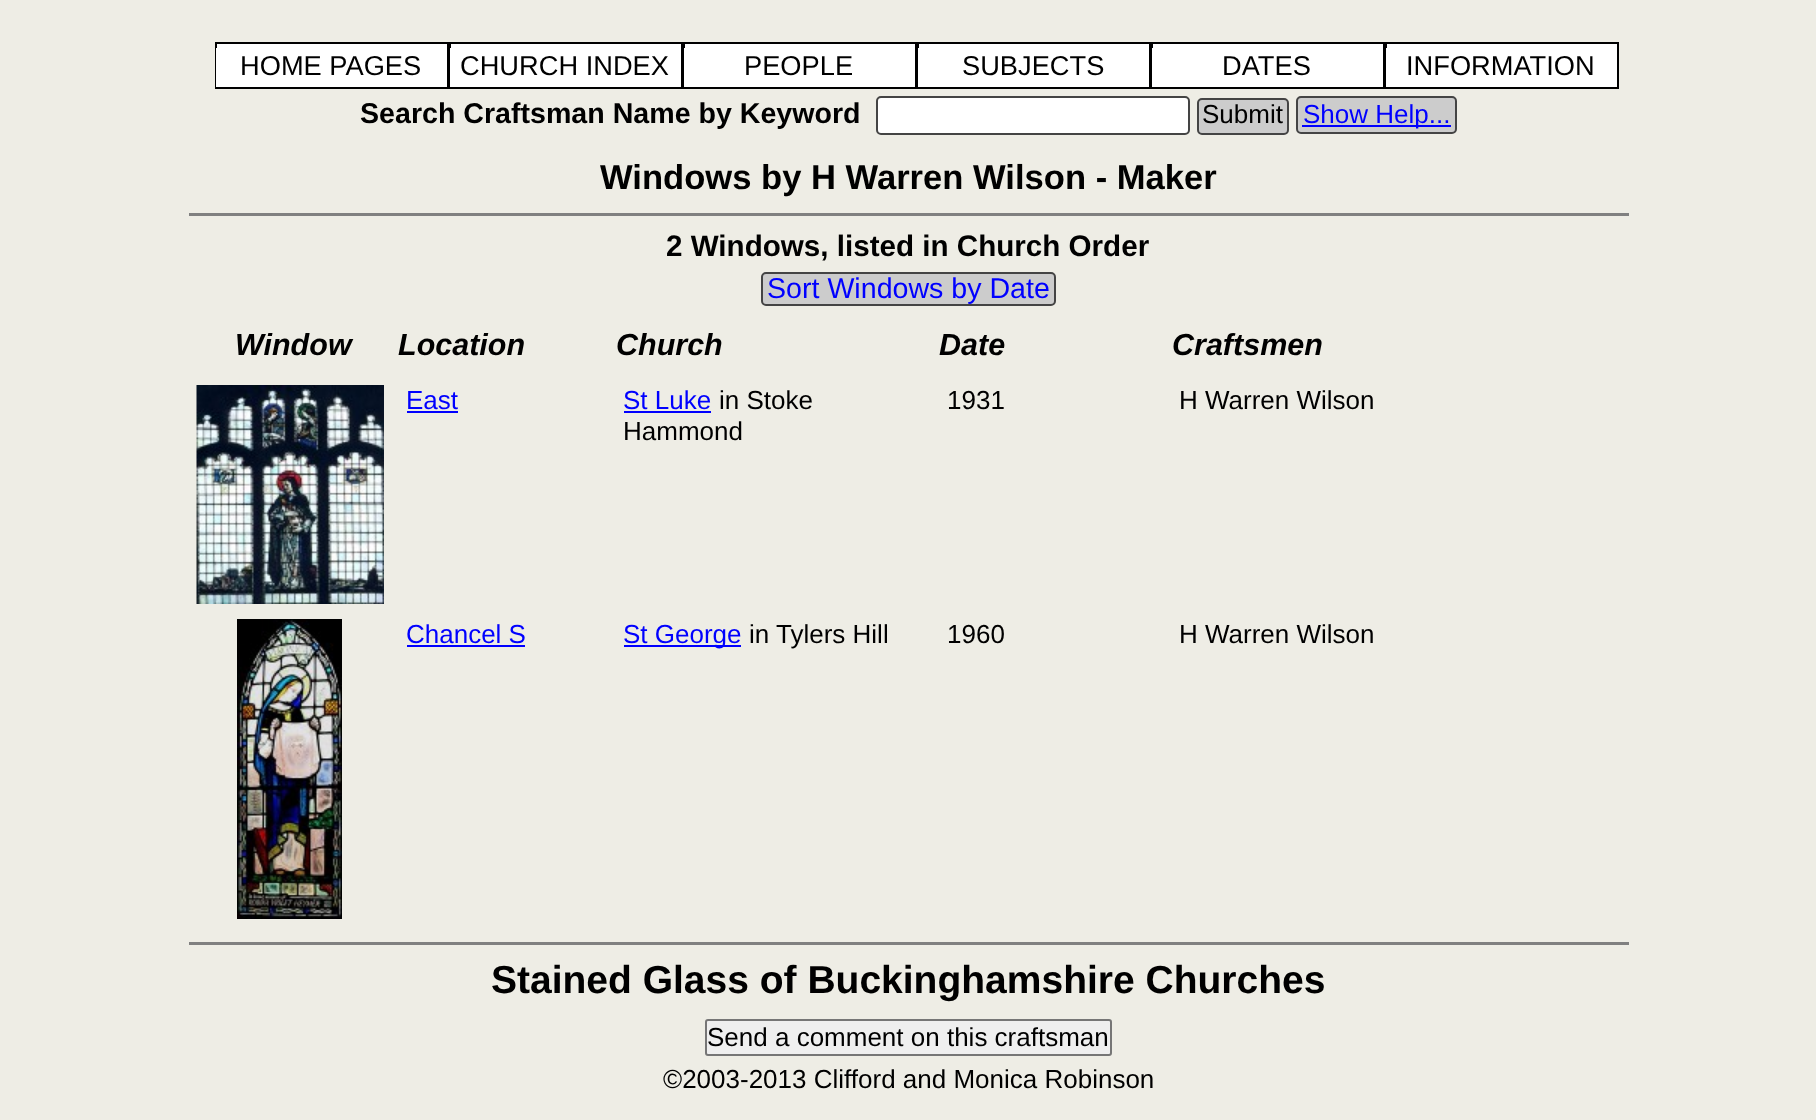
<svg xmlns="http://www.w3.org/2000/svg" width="1816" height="1120">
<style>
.a{font:27.25px Liberation Sans;fill:#000}
.b{font:bold 28.6px Liberation Sans;fill:#000}
.c{font:26px Liberation Sans;fill:#000}
.d{font:26px Liberation Sans;fill:#00f}
.e{font:bold 34.6px Liberation Sans;fill:#000}
.f{font:bold 29.6px Liberation Sans;fill:#000}
.g{font:28.6px Liberation Sans;fill:#00f}
.h{font:italic bold 30.5px Liberation Sans;fill:#000}
.i{font:bold 39px Liberation Sans;fill:#000}
</style>
<rect width="100%" height="100%" fill="#eeede5"/>
<path fill="#fff" d="M217 44h230v4H217z"/>
<path fill="none" stroke="#000" stroke-width="2" d="M216 43h232v45H216z"/>
<path fill="#fff" d="M216 48h231v39H216z"/>
<path fill="#fff" d="M451 44h230v4H451z"/>
<path fill="none" stroke="#000" stroke-width="2" d="M450 43h232v45H450z"/>
<path fill="#fff" d="M450 48h231v39H450z"/>
<path fill="#fff" d="M685 44h230v4H685z"/>
<path fill="none" stroke="#000" stroke-width="2" d="M684 43h232v45H684z"/>
<path fill="#fff" d="M684 48h231v39H684z"/>
<path fill="#fff" d="M919 44h230v4H919z"/>
<path fill="none" stroke="#000" stroke-width="2" d="M918 43h232v45H918z"/>
<path fill="#fff" d="M918 48h231v39H918z"/>
<path fill="#fff" d="M1153 44h230v4H1153z"/>
<path fill="none" stroke="#000" stroke-width="2" d="M1152 43h232v45H1152z"/>
<path fill="#fff" d="M1152 48h231v39H1152z"/>
<path fill="#fff" d="M1387 44h230v4H1387z"/>
<path fill="none" stroke="#000" stroke-width="2" d="M1386 43h232v45H1386z"/>
<path fill="#fff" d="M1386 48h231v39H1386z"/>
<rect fill="#fff" stroke="#444" stroke-width="2" x="877" y="97" width="312" height="37" rx="4"/>
<rect fill="#ccc" stroke="#444" stroke-width="2" x="1198" y="99" width="90" height="35" rx="4"/>
<rect fill="#ccc" stroke="#444" stroke-width="2" x="1297" y="97" width="159" height="36" rx="4"/>
<path fill="#00f" d="M1302 125h149v2H1302z"/>
<path fill="#808080" d="M189 213h1440v3H189z"/>
<rect fill="#ccc" stroke="#444" stroke-width="2" x="762" y="273" width="293" height="32" rx="4"/>
<image href="1.png" x="196" y="385" width="188" height="219"/>
<path fill="#00f" d="M407 411h51v2H407z"/>
<path fill="#00f" d="M624 411h87v2H624z"/>
<image href="2.png" x="237" y="619" width="105" height="300"/>
<path fill="#00f" d="M407 645h118v2H407z"/>
<path fill="#00f" d="M624 645h117v2H624z"/>
<path fill="#808080" d="M189 942h1440v3H189z"/>
<rect fill="#efefef" stroke="#767676" stroke-width="2" x="706" y="1020" width="405" height="35" rx="2"/>
<text class="a" x="240" y="75">HOME PAGES</text>
<text class="a" x="460" y="75">CHURCH INDEX</text>
<text class="a" x="744" y="75">PEOPLE</text>
<text class="a" x="962" y="75">SUBJECTS</text>
<text class="a" x="1222" y="75">DATES</text>
<text class="a" x="1406" y="75">INFORMATION</text>
<text class="b" x="360" y="123">Search Craftsman Name by Keyword</text>
<text class="c" x="1202" y="123">Submit</text>
<text class="d" x="1303" y="123">Show Help...</text>
<text class="e" x="600" y="189">Windows by H Warren Wilson - Maker</text>
<text class="f" x="666" y="256">2 Windows, listed in Church Order</text>
<text class="g" x="767" y="298">Sort Windows by Date</text>
<text class="h" x="235" y="355">Window</text>
<text class="h" x="398" y="355">Location</text>
<text class="h" x="616" y="355">Church</text>
<text class="h" x="939" y="355">Date</text>
<text class="h" x="1172" y="355">Craftsmen</text>
<text class="d" x="406" y="409">East</text>
<text class="d" x="623" y="409">St Luke</text>
<text class="c" x="719" y="409">in Stoke</text>
<text class="c" x="623" y="440">Hammond</text>
<text class="c" x="947" y="409">1931</text>
<text class="c" x="1179" y="409">H Warren Wilson</text>
<text class="d" x="406" y="643">Chancel S</text>
<text class="d" x="623" y="643">St George</text>
<text class="c" x="749" y="643">in Tylers Hill</text>
<text class="c" x="947" y="643">1960</text>
<text class="c" x="1179" y="643">H Warren Wilson</text>
<text class="i" x="491" y="993">Stained Glass of Buckinghamshire Churches</text>
<text class="c" x="707" y="1046">Send a comment on this craftsman</text>
<text class="c" x="663" y="1088">©2003-2013 Clifford and Monica Robinson</text>
</svg>
